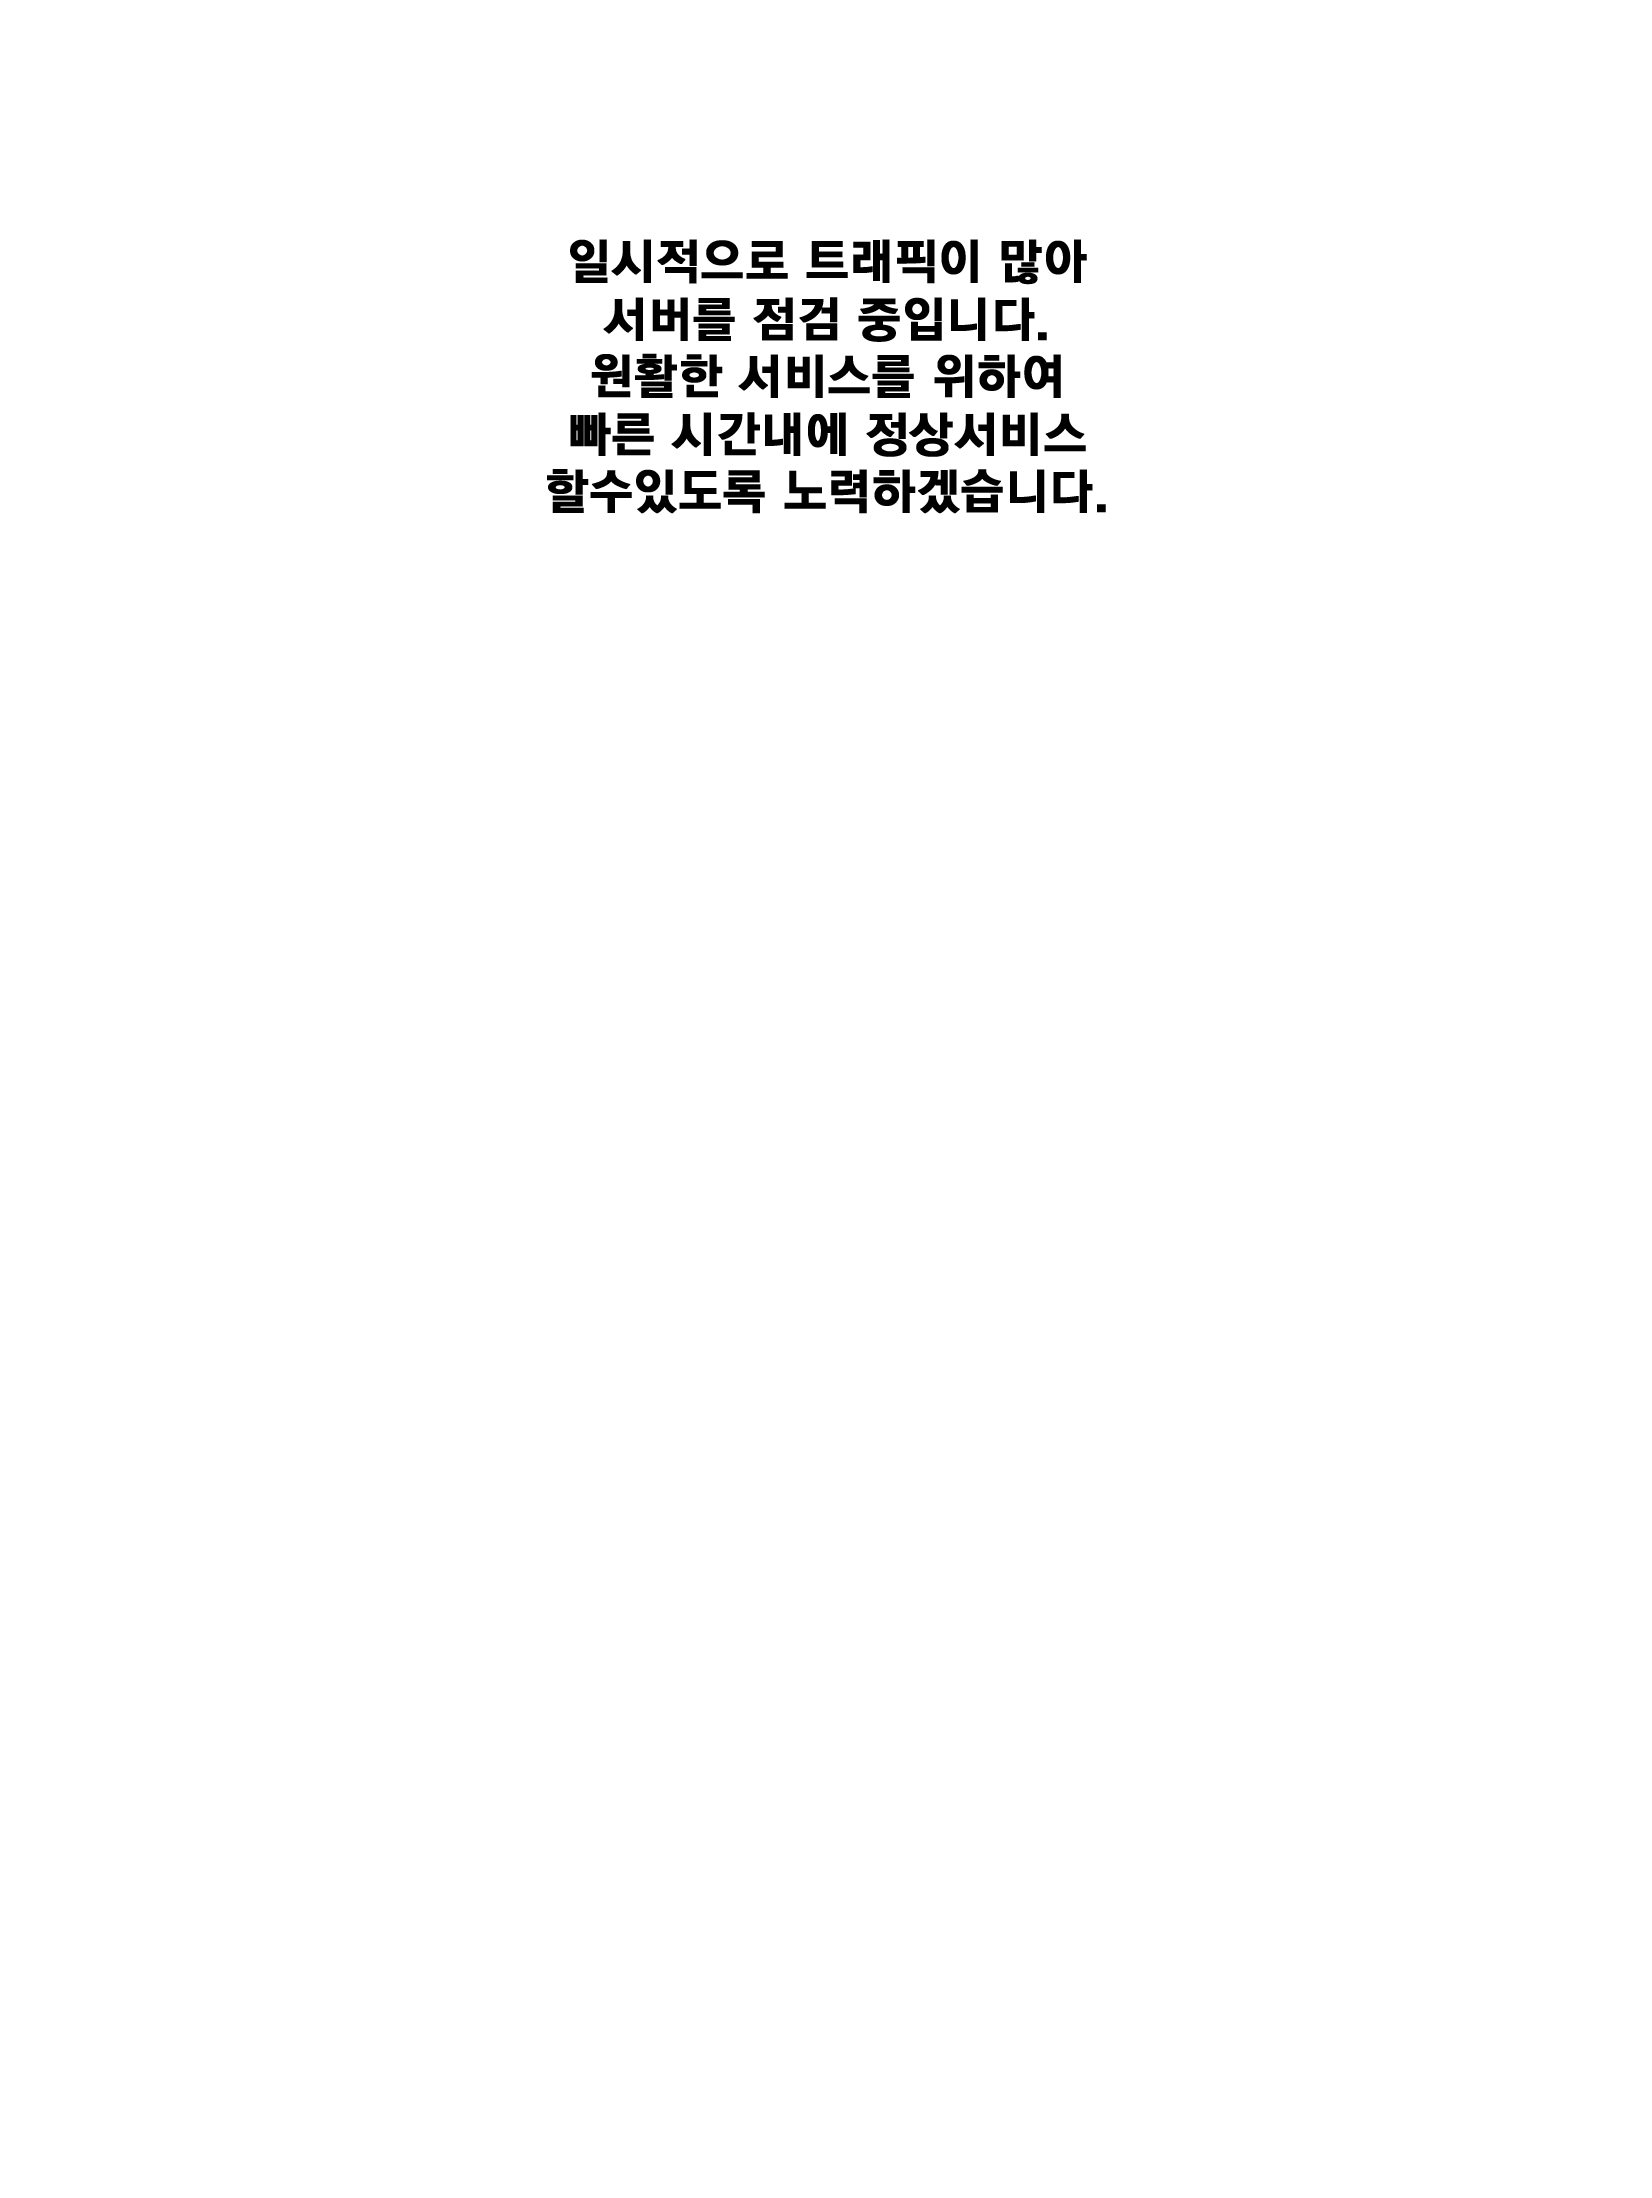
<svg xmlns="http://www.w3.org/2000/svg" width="1652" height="2198">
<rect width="100%" height="100%" fill="#fff"/>
<image href="1.png" x="547" y="239" width="559" height="275"/>
</svg>
